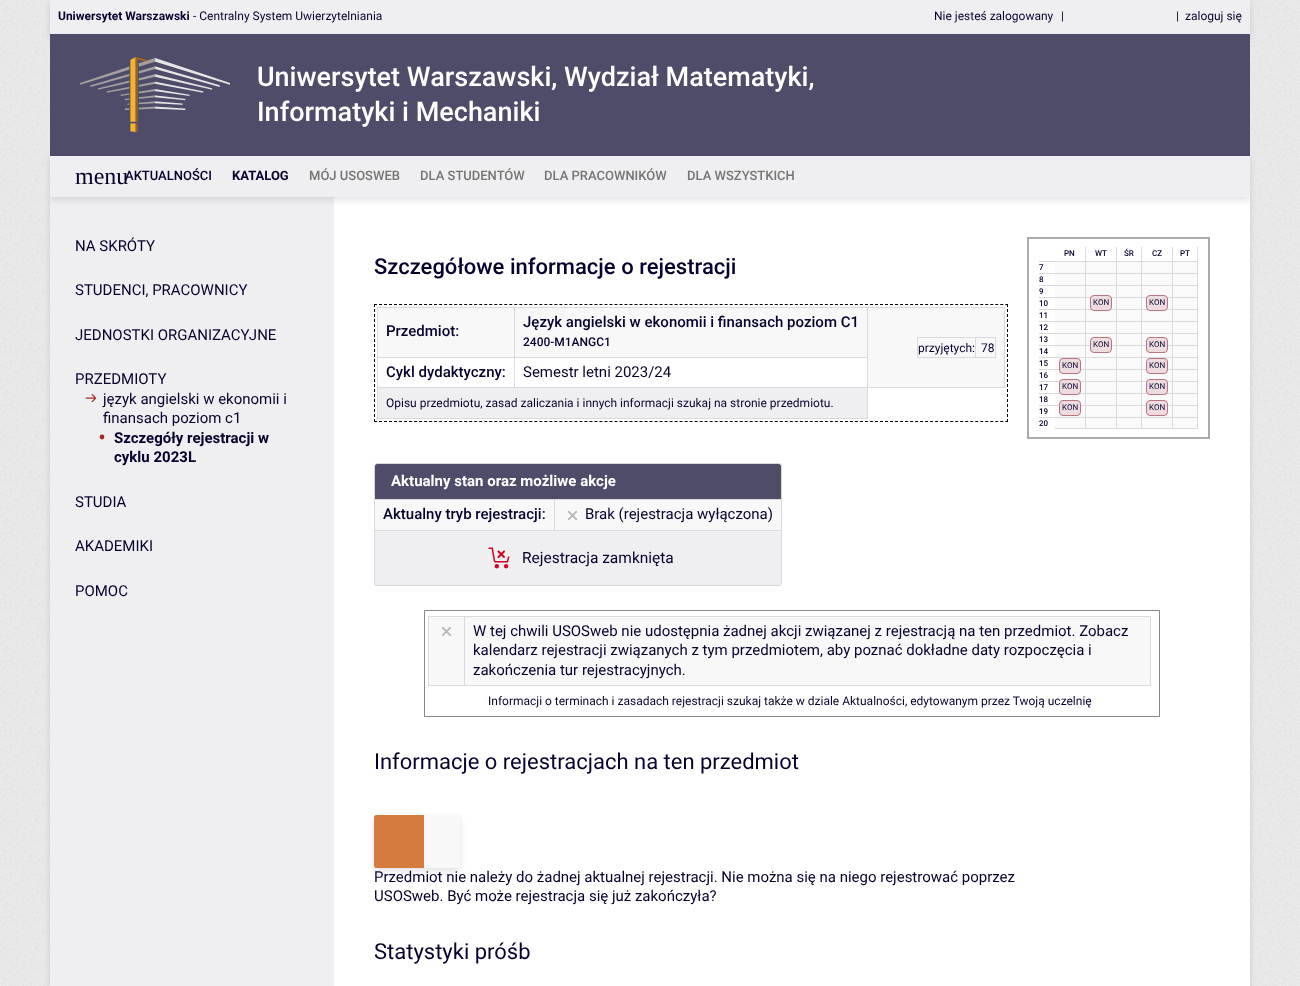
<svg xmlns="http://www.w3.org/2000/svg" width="1300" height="986">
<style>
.a{font:bold 12px Roboto;fill:#06022e}
.b{font:12px Roboto;fill:#06022e}
.c{font:500 27px Roboto;fill:#fff}
.d{font:24px Liberation Serif;fill:#06022e}
.e{font:500 13px Roboto;fill:#06022e}
.f{font:bold 13px Roboto;fill:#06022e}
.g{font:500 13px Roboto;fill:#757575}
.h{font:15px Roboto;fill:#06022e}
.i{font:bold 15px Roboto;fill:#06022e}
.j{font:500 22px Roboto;fill:#06022e}
.k{font:500 15px Roboto;fill:#06022e}
.l{font:500 12px Roboto;fill:#06022e}
.m{font:500 8px Roboto;fill:#06022e}
.n{font:8px Roboto;fill:#06022e}
.o{font:bold 15px Roboto;fill:#fff}
.p{font:15.5px Roboto;fill:#06022e}
.q{font:22px Roboto;fill:#06022e}
</style>
<rect width="100%" height="100%" fill="#fff"/>
<image href="1.png" x="0" y="0" width="1300" height="986"/>
<path fill="#0606331f" filter="blur(3px)" d="M50 3h1200v34H50z"/>
<path fill="#efeff1" d="M50 0h1200v34H50z"/>
<path fill="#4f4c6a" d="M50 34h1200v122H50z"/>
<image href="2.png" x="80" y="57" width="150" height="75"/>
<path fill="#0606331f" filter="blur(3px)" d="M50 200h1200v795H50z"/>
<path fill="#fff" d="M334 197h916v789H334z"/>
<path fill="#efeff1" d="M50 197h284v789H50z"/>
<path fill="#0606331f" filter="blur(3px)" d="M50 159h1200v41H50z"/>
<path fill="#efeff1" d="M50 156h1200v41H50z"/>
<image href="3.png" x="85" y="394" width="12" height="9"/>
<circle fill="#a62929" cx="102" cy="437" r="2.4"/>
<path fill="none" stroke="#000" stroke-dasharray="3 2.01" d="M374 304.5h634"/>
<path fill="none" stroke="#000" stroke-dasharray="3 2" d="M1007.5 304v118"/>
<path fill="none" stroke="#000" stroke-dasharray="3 2.01" d="M374 421.5h634"/>
<path fill="none" stroke="#000" stroke-dasharray="3 2" d="M374.5 304v118"/>
<path fill="#f8f8f8" d="M378 308h136v49H378z"/>
<path fill="#dadade" d="M867 307h138v1H867z"/>
<path fill="#dadade" d="M1004 307h1v81H1004z"/>
<path fill="#dadade" d="M377 387h491v1H377z"/>
<path fill="#dadade" d="M867 387h1v32H867z"/>
<path fill="#dadade" d="M867 387h138v1H867z"/>
<path fill="#dadade" d="M514 357h354v1H514z"/>
<path fill="#dadade" d="M867 307h1v81H867z"/>
<path fill="#dadade" d="M514 307h354v1H514z"/>
<path fill="#dadade" d="M514 357h1v31H514z"/>
<path fill="#dadade" d="M377 357h138v1H377z"/>
<path fill="#dadade" d="M514 307h1v51H514z"/>
<path fill="#dadade" d="M377 307h138v1H377z"/>
<path fill="#dadade" d="M377 418h491v1H377z"/>
<path fill="#dadade" d="M377 387h1v32H377z"/>
<path fill="#dadade" d="M377 357h1v31H377z"/>
<path fill="#dadade" d="M377 307h1v51H377z"/>
<path fill="#f8f8f8" d="M515 308h352v49H515z"/>
<path fill="#f8f8f8" d="M868 308h136v79H868z"/>
<path fill="#dadade" d="M975 337h21v1H975z"/>
<path fill="#dadade" d="M995 337h1v21H995z"/>
<path fill="#dadade" d="M975 357h21v1H975z"/>
<path fill="#dadade" d="M975 337h1v21H975z"/>
<path fill="#dadade" d="M917 337h59v1H917z"/>
<path fill="#dadade" d="M917 357h59v1H917z"/>
<path fill="#dadade" d="M917 337h1v21H917z"/>
<path fill="#efeff1" d="M378 388h489v30H378z"/>
<path fill="none" stroke="#aaa" stroke-width="2" d="M1028 238h181v200H1028z"/>
<path fill="#dadade" d="M1085 247h1v182H1085z"/>
<path fill="#dadade" d="M1116 247h1v182H1116z"/>
<path fill="#dadade" d="M1141 247h1v182H1141z"/>
<path fill="#dadade" d="M1172 247h1v182H1172z"/>
<path fill="#dadade" d="M1197 247h1v182H1197z"/>
<path fill="#dadade" d="M1039 261h159v1H1039z"/>
<path fill="#fafafa" d="M1055 262h30v166H1055z"/>
<path fill="#fafafa" d="M1086 262h30v166H1086z"/>
<path fill="#fafafa" d="M1117 262h24v166H1117z"/>
<path fill="#fafafa" d="M1142 262h30v166H1142z"/>
<path fill="#fafafa" d="M1173 262h24v166H1173z"/>
<path fill="#dadade" d="M1039 273h159v1H1039z"/>
<path fill="#dadade" d="M1039 285h159v1H1039z"/>
<path fill="#dadade" d="M1039 297h159v1H1039z"/>
<path fill="#dadade" d="M1039 309h159v1H1039z"/>
<path fill="#dadade" d="M1039 321h159v1H1039z"/>
<path fill="#dadade" d="M1039 333h159v1H1039z"/>
<path fill="#dadade" d="M1039 345h159v1H1039z"/>
<path fill="#dadade" d="M1039 357h159v1H1039z"/>
<path fill="#dadade" d="M1039 369h159v1H1039z"/>
<path fill="#dadade" d="M1039 381h159v1H1039z"/>
<path fill="#dadade" d="M1039 393h159v1H1039z"/>
<path fill="#dadade" d="M1039 405h159v1H1039z"/>
<path fill="#dadade" d="M1039 417h159v1H1039z"/>
<path fill="#dadade" d="M1055 428h30v1H1055z"/>
<rect fill="#eddbdf" stroke="#b97483" x="1059.5" y="358.5" width="21" height="15" rx="3.5"/>
<rect fill="#eddbdf" stroke="#b97483" x="1059.5" y="379.5" width="21" height="15" rx="3.5"/>
<rect fill="#eddbdf" stroke="#b97483" x="1059.5" y="400.5" width="21" height="15" rx="3.5"/>
<path fill="#dadade" d="M1086 428h30v1H1086z"/>
<rect fill="#eddbdf" stroke="#b97483" x="1090.5" y="295.5" width="21" height="15" rx="3.5"/>
<rect fill="#eddbdf" stroke="#b97483" x="1090.5" y="337.5" width="21" height="15" rx="3.5"/>
<path fill="#dadade" d="M1117 428h24v1H1117z"/>
<path fill="#dadade" d="M1142 428h30v1H1142z"/>
<rect fill="#eddbdf" stroke="#b97483" x="1146.5" y="295.5" width="21" height="15" rx="3.5"/>
<rect fill="#eddbdf" stroke="#b97483" x="1146.5" y="337.5" width="21" height="15" rx="3.5"/>
<rect fill="#eddbdf" stroke="#b97483" x="1146.5" y="358.5" width="21" height="15" rx="3.5"/>
<rect fill="#eddbdf" stroke="#b97483" x="1146.5" y="379.5" width="21" height="15" rx="3.5"/>
<rect fill="#eddbdf" stroke="#b97483" x="1146.5" y="400.5" width="21" height="15" rx="3.5"/>
<path fill="#dadade" d="M1173 428h24v1H1173z"/>
<path fill="none" stroke="#dadade" d="M377 463.5h402c1.5 0 2.5 1 2.5 2.5v118c0 1-.5 1.5-1.5 1.5h-404c-1 0-1.5-.5-1.5-1.5v-118c0-1.5 1-2.5 2.5-2.5z"/>
<path fill="#4f4c6a" d="M377 464h402c1 0 2 1 2 2v34h-406v-34c0-1 1-2 2-2z"/>
<path fill="#f8f8f8" d="M375 500h179v30H375z"/>
<path fill="#dadade" d="M554 499h228v1H554z"/>
<path fill="#dadade" d="M554 499h1v32H554z"/>
<path fill="#dadade" d="M374 499h181v1H374z"/>
<path fill="#f8f8f8" d="M555 500h226v30H555z"/>
<image href="4.png" x="568" y="511" width="9" height="9"/>
<path fill="#efeff1" d="M375 531h406v54H375z"/>
<path fill="#dadade" d="M375 530h406v1H375z"/>
<image href="5.png" x="488" y="547" width="22" height="22"/>
<path fill="none" stroke="#888" d="M424.5 610.5h735v106H424.5z"/>
<path fill="#f8f8f8" d="M429 617h35v68H429z"/>
<path fill="#dadade" d="M464 616h687v1H464z"/>
<path fill="#dadade" d="M1150 616h1v70H1150z"/>
<path fill="#dadade" d="M464 685h687v1H464z"/>
<path fill="#dadade" d="M464 616h1v70H464z"/>
<path fill="#dadade" d="M428 616h37v1H428z"/>
<path fill="#dadade" d="M428 685h37v1H428z"/>
<path fill="#dadade" d="M428 616h1v70H428z"/>
<image href="4.png" x="442" y="627" width="9" height="9"/>
<path fill="#f8f8f8" d="M465 617h685v68H465z"/>
<rect fill="#0606331f" filter="blur(3px)" x="374" y="818" width="86" height="53" rx="2"/>
<path fill="#d67b40" d="M376 815h48v53h-48c-1 0-2-1-2-2v-49c0-1 1-2 2-2z"/>
<path fill="#f8f8f8" d="M424 815h34c1 0 2 1 2 2v49c0 1-1 2-2 2h-34z"/>
<text class="a" x="58" y="20">Uniwersytet Warszawski</text>
<text class="b" x="193" y="20">- Centralny System Uwierzytelniania</text>
<text class="b" x="934" y="20">Nie jesteś zalogowany</text>
<text class="b" x="1061" y="20">|</text>
<text class="b" x="1176" y="20">|</text>
<text class="b" x="1185" y="20">zaloguj się</text>
<text class="c" x="257" y="86">Uniwersytet Warszawski, Wydział Matematyki,</text>
<text class="c" x="257" y="121">Informatyki i Mechaniki</text>
<text class="d" x="75" y="184">menu</text>
<text class="e" x="125" y="180">AKTUALNOŚCI</text>
<text class="f" x="232" y="180">KATALOG</text>
<text class="g" x="309" y="180">MÓJ USOSWEB</text>
<text class="g" x="420" y="180">DLA STUDENTÓW</text>
<text class="g" x="544" y="180">DLA PRACOWNIKÓW</text>
<text class="g" x="687" y="180">DLA WSZYSTKICH</text>
<text class="h" x="75" y="251">NA SKRÓTY</text>
<text class="h" x="75" y="295">STUDENCI, PRACOWNICY</text>
<text class="h" x="75" y="340">JEDNOSTKI ORGANIZACYJNE</text>
<text class="h" x="75" y="384">PRZEDMIOTY</text>
<text class="h" x="103" y="404">język angielski w ekonomii i</text>
<text class="h" x="103" y="423">finansach poziom c1</text>
<text class="i" x="114" y="443">Szczegóły rejestracji w</text>
<text class="i" x="114" y="462">cyklu 2023L</text>
<text class="h" x="75" y="507">STUDIA</text>
<text class="h" x="75" y="551">AKADEMIKI</text>
<text class="h" x="75" y="596">POMOC</text>
<text class="j" x="374" y="274">Szczegółowe informacje o rejestracji</text>
<text class="k" x="386" y="336">Przedmiot:</text>
<text class="k" x="523" y="327">Język angielski w ekonomii i finansach poziom C1</text>
<text class="l" x="523" y="346">2400-M1ANGC1</text>
<text class="b" x="918" y="352">przyjętych:</text>
<text class="b" x="981" y="352">78</text>
<text class="k" x="386" y="377">Cykl dydaktyczny:</text>
<text class="h" x="523" y="377">Semestr letni 2023/24</text>
<text class="b" x="386" y="407">Opisu przedmiotu, zasad zaliczania i innych informacji szukaj na stronie przedmiotu.</text>
<text class="m" x="1039" y="270">7</text>
<text class="m" x="1039" y="282">8</text>
<text class="m" x="1039" y="294">9</text>
<text class="m" x="1039" y="306">10</text>
<text class="m" x="1039" y="318">11</text>
<text class="m" x="1039" y="330">12</text>
<text class="m" x="1039" y="342">13</text>
<text class="m" x="1039" y="354">14</text>
<text class="m" x="1039" y="366">15</text>
<text class="m" x="1039" y="378">16</text>
<text class="m" x="1039" y="390">17</text>
<text class="m" x="1039" y="402">18</text>
<text class="m" x="1039" y="414">19</text>
<text class="m" x="1039" y="426">20</text>
<text class="m" x="1064" y="256">PN</text>
<text class="n" x="1062" y="368">KON</text>
<text class="n" x="1062" y="389">KON</text>
<text class="n" x="1062" y="410">KON</text>
<text class="m" x="1095" y="256">WT</text>
<text class="n" x="1093" y="305">KON</text>
<text class="n" x="1093" y="347">KON</text>
<text class="m" x="1124" y="256">ŚR</text>
<text class="m" x="1152" y="256">CZ</text>
<text class="n" x="1149" y="305">KON</text>
<text class="n" x="1149" y="347">KON</text>
<text class="n" x="1149" y="368">KON</text>
<text class="n" x="1149" y="389">KON</text>
<text class="n" x="1149" y="410">KON</text>
<text class="m" x="1180" y="256">PT</text>
<text class="o" x="391" y="486">Aktualny stan oraz możliwe akcje</text>
<text class="k" x="383" y="519">Aktualny tryb rejestracji:</text>
<text class="h" x="585" y="519">Brak (rejestracja wyłączona)</text>
<text class="p" x="522" y="563">Rejestracja zamknięta</text>
<text class="h" x="473" y="636">W tej chwili USOSweb nie udostępnia żadnej akcji związanej z rejestracją na ten przedmiot. Zobacz</text>
<text class="h" x="473" y="655">kalendarz rejestracji związanych z tym przedmiotem, aby poznać dokładne daty rozpoczęcia i</text>
<text class="h" x="473" y="675">zakończenia tur rejestracyjnych.</text>
<text class="b" x="488" y="705">Informacji o terminach i zasadach rejestracji szukaj także w dziale Aktualności, edytowanym przez Twoją uczelnię</text>
<text class="q" x="374" y="769">Informacje o rejestracjach na ten przedmiot</text>
<text class="h" x="374" y="882">Przedmiot nie należy do żadnej aktualnej rejestracji. Nie można się na niego rejestrować poprzez</text>
<text class="h" x="374" y="901">USOSweb. Być może rejestracja się już zakończyła?</text>
<text class="q" x="374" y="959">Statystyki próśb</text>
</svg>
